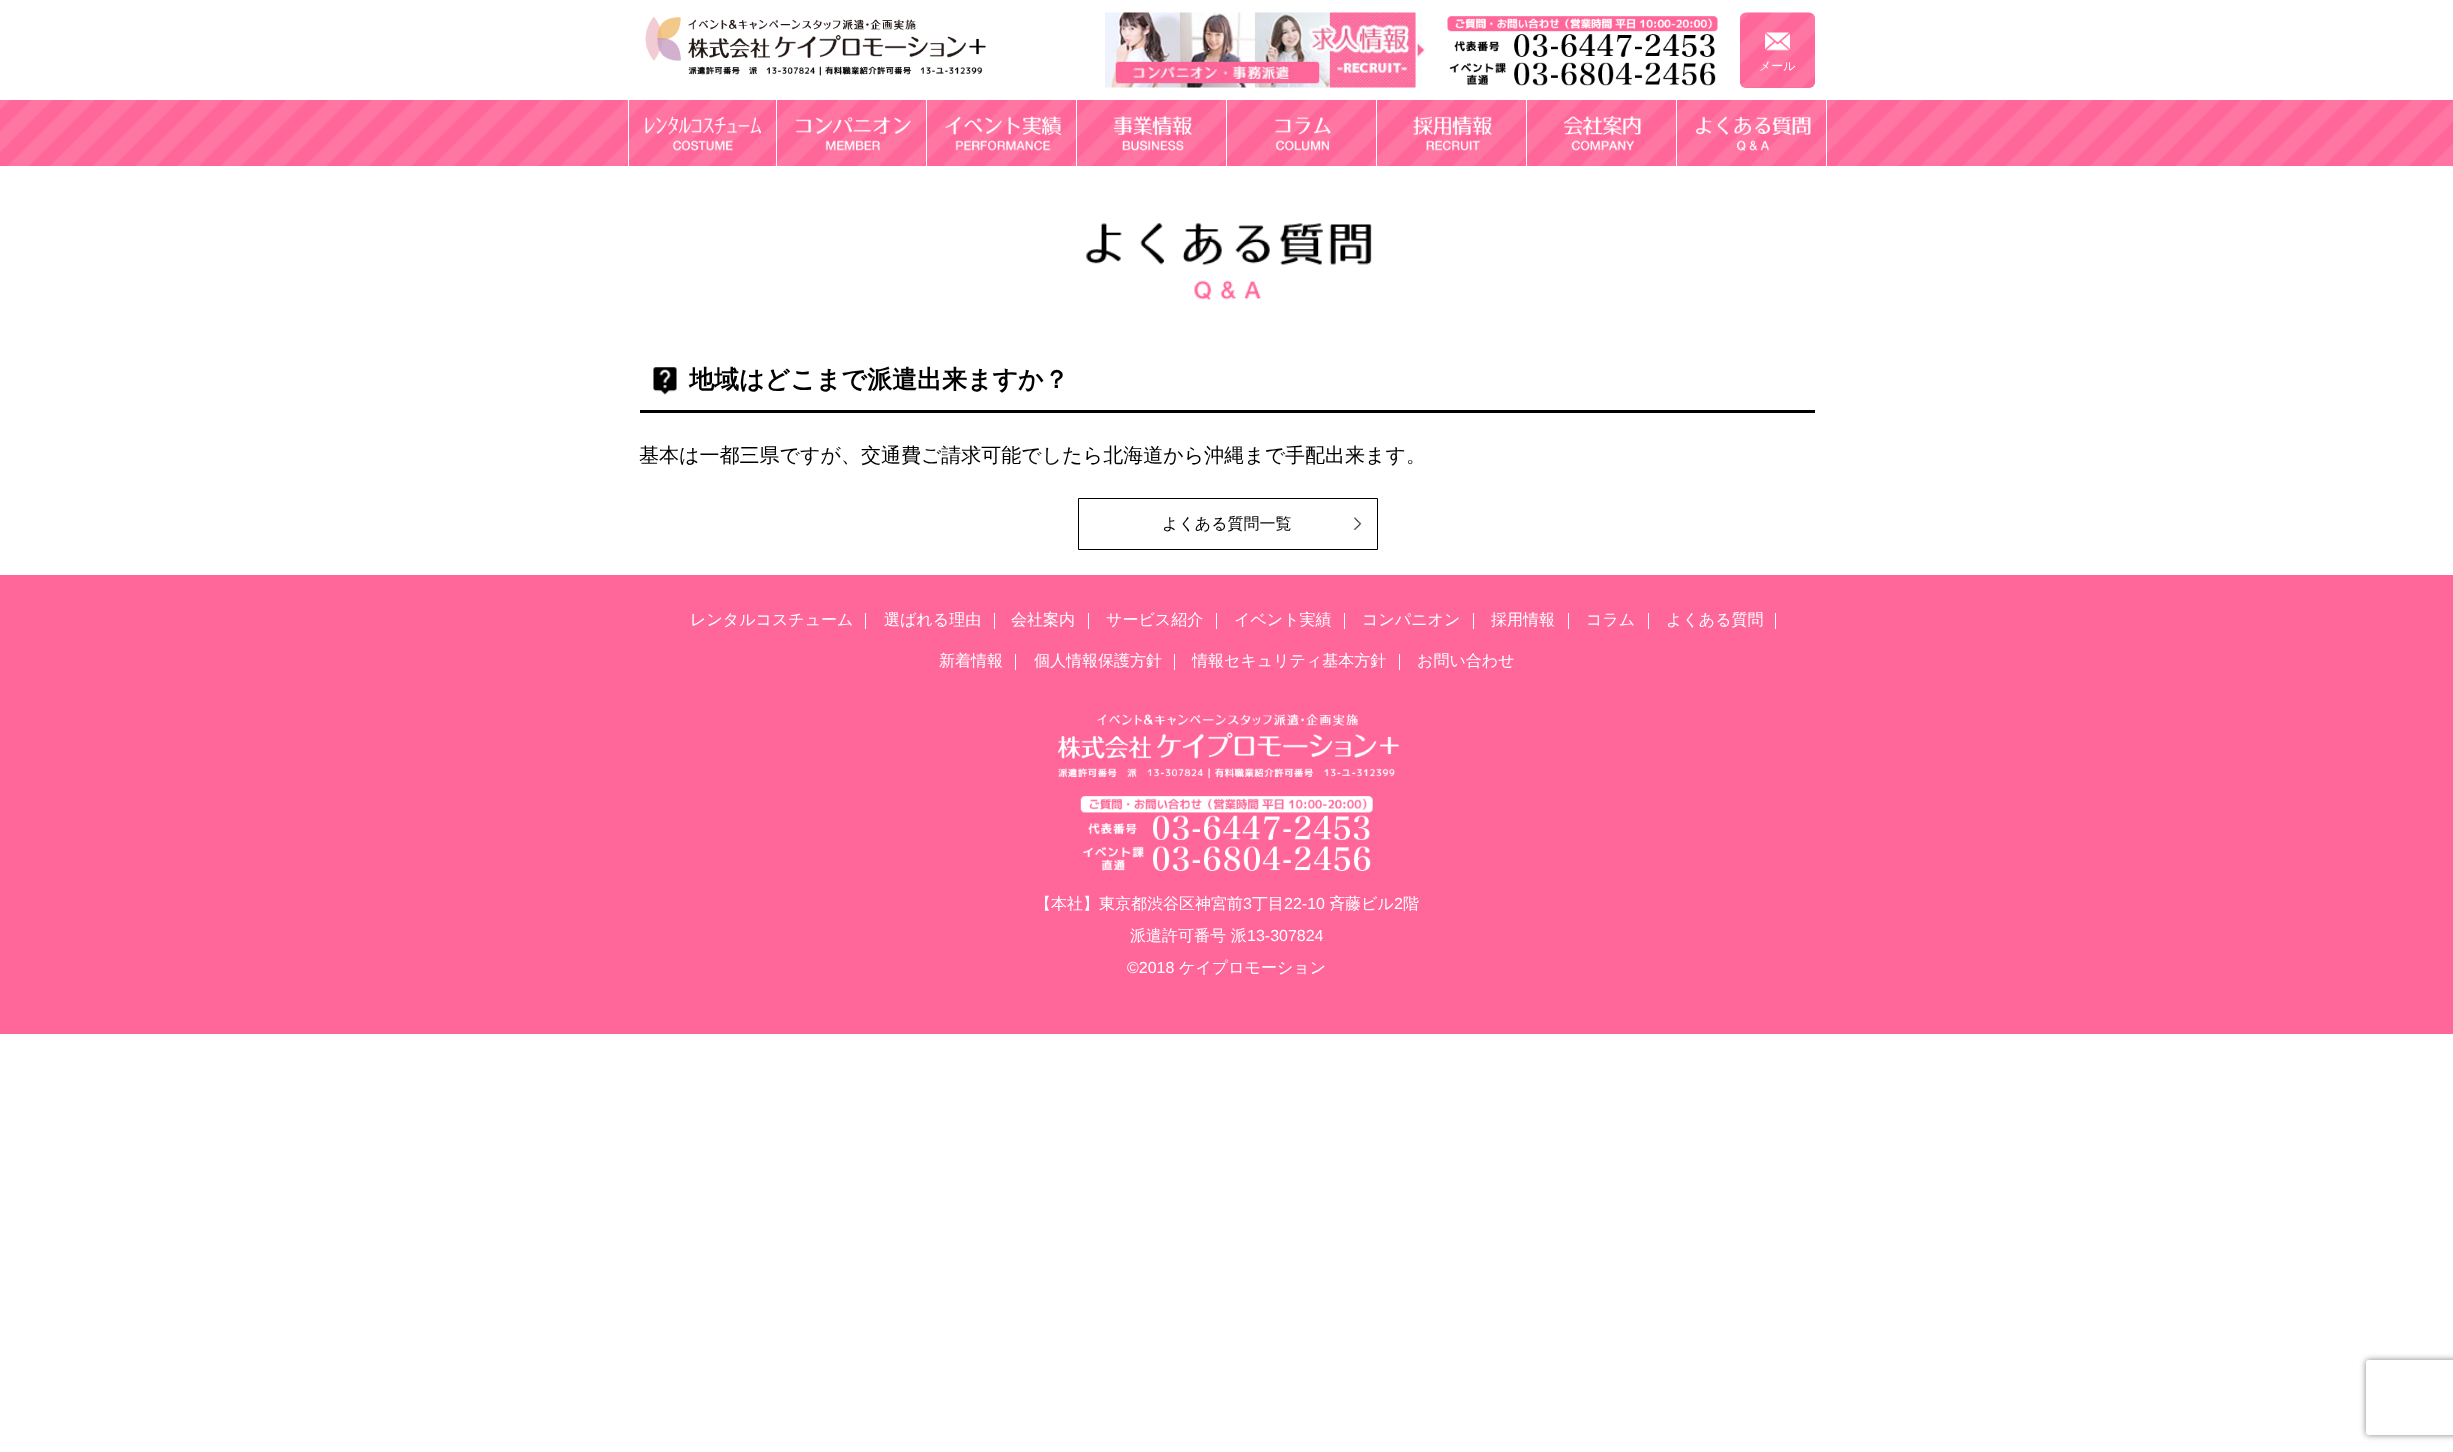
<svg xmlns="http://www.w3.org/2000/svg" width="2453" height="1452">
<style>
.a{font:500 12px WenQuanYi Zen Hei;fill:#fff}
.b{font:bold 25px WenQuanYi Zen Hei;fill:#000}
.c{font:500 20px WenQuanYi Zen Hei;fill:#000}
.d{font:500 16px WenQuanYi Zen Hei;fill:#000}
.e{font:500 16px WenQuanYi Zen Hei;fill:#fff}
.f{font:16px Liberation Sans;fill:#fff}
</style>
<defs>
<clipPath id="clip1"><path d="M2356 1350h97v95h-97zm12.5 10h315c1.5 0 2.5 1 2.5 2.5v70c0 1.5-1 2.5-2.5 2.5h-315c-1.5 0-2.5-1-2.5-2.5v-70c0-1.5 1-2.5 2.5-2.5z" clip-rule="evenodd"/></clipPath>
</defs>
<rect width="100%" height="100%" fill="#fff"/>
<image href="1.png" x="645" y="16" width="341" height="60"/>
<image href="2.png" x="1105" y="12" width="322" height="76"/>
<image href="3.png" x="1447" y="16" width="271" height="70"/>
<rect fill="#f69" x="1740" y="13" width="75" height="75" rx="6"/>
<image href="4.png" x="1740" y="12" width="75" height="76"/>
<image href="5.png" x="1765" y="32" width="25" height="19"/>
<image href="6.png" x="0" y="100" width="2453" height="66"/>
<path fill="#fff" d="M776 100h1v66H776z"/>
<path fill="#fff" d="M628 100h1v66H628z"/>
<image href="7.png" x="645" y="116" width="117" height="35"/>
<path fill="#fff" d="M926 100h1v66H926z"/>
<image href="8.png" x="795" y="116" width="116" height="35"/>
<path fill="#fff" d="M1076 100h1v66H1076z"/>
<image href="9.png" x="945" y="116" width="117" height="35"/>
<path fill="#fff" d="M1226 100h1v66H1226z"/>
<image href="10.png" x="1113" y="116" width="79" height="35"/>
<path fill="#fff" d="M1376 100h1v66H1376z"/>
<image href="11.png" x="1275" y="117" width="56" height="34"/>
<path fill="#fff" d="M1526 100h1v66H1526z"/>
<image href="12.png" x="1413" y="116" width="79" height="35"/>
<path fill="#fff" d="M1676 100h1v66H1676z"/>
<image href="13.png" x="1563" y="115" width="78" height="36"/>
<path fill="#fff" d="M1826 100h1v66H1826z"/>
<image href="14.png" x="1695" y="116" width="116" height="35"/>
<image href="15.png" x="1086" y="223" width="286" height="78"/>
<path fill="#000" d="M640 410h1175v3H640z"/>
<image href="16.png" x="653" y="367" width="24" height="28"/>
<image href="17.png" x="1353" y="517" width="9" height="13"/>
<path fill="none" stroke="#000" d="M1078.5 498.5h299v51H1078.5z"/>
<path fill="#f69" d="M0 575h2453v459H0z"/>
<path fill="#fff" d="M865 613h1v16H865z"/>
<path fill="#fff" d="M994 613h1v16H994z"/>
<path fill="#fff" d="M1088 613h1v16H1088z"/>
<path fill="#fff" d="M1216 613h1v16H1216z"/>
<path fill="#fff" d="M1344 613h1v16H1344z"/>
<path fill="#fff" d="M1473 613h1v16H1473z"/>
<path fill="#fff" d="M1568 613h1v16H1568z"/>
<path fill="#fff" d="M1648 613h1v16H1648z"/>
<path fill="#fff" d="M1775 613h1v16H1775z"/>
<path fill="#fff" d="M1015 654h1v16H1015z"/>
<path fill="#fff" d="M1174 654h1v16H1174z"/>
<path fill="#fff" d="M1399 654h1v16H1399z"/>
<image href="18.png" x="1058" y="714" width="341" height="65"/>
<image href="19.png" x="1080" y="796" width="293" height="75"/>
<g clip-path="url(#clip1)">
<rect fill="#808080" filter="blur(3px)" x="2366" y="1360" width="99" height="75" rx="2.5"/>
</g>
<text class="a" x="1759" y="70">メール</text>
<text class="b" x="689" y="388">地域はどこまで派遣出来ますか？</text>
<text class="c" x="639" y="462">基本は一都三県ですが、交通費ご請求可能でしたら北海道から沖縄まで手配出来ます。</text>
<text class="d" x="1162" y="529">よくある質問一覧</text>
<text class="e" x="690" y="625">レンタルコスチューム</text>
<text class="e" x="884" y="625">選ばれる理由</text>
<text class="e" x="1011" y="625">会社案内</text>
<text class="e" x="1106" y="625">サービス紹介</text>
<text class="e" x="1234" y="625">イベント実績</text>
<text class="e" x="1362" y="625">コンパニオン</text>
<text class="e" x="1491" y="625">採用情報</text>
<text class="e" x="1586" y="625">コラム</text>
<text class="e" x="1666" y="625">よくある質問</text>
<text class="e" x="939" y="666">新着情報</text>
<text class="e" x="1034" y="666">個人情報保護方針</text>
<text class="e" x="1192" y="666">情報セキュリティ基本方針</text>
<text class="e" x="1417" y="666">お問い合わせ</text>
<text class="e" x="1035" y="909">【本社】東京都渋谷区神宮前</text>
<text class="f" x="1243" y="909">3</text>
<text class="e" x="1252" y="909">丁目</text>
<text class="f" x="1284" y="909">22-10</text>
<text class="e" x="1329" y="909">斉藤ビル</text>
<text class="f" x="1394" y="909">2</text>
<text class="e" x="1403" y="909">階</text>
<text class="e" x="1130" y="941">派遣許可番号 派</text>
<text class="f" x="1247" y="941">13-307824</text>
<text class="f" x="1127" y="973">©2018</text>
<text class="e" x="1179" y="973">ケイプロモーション</text>
</svg>
